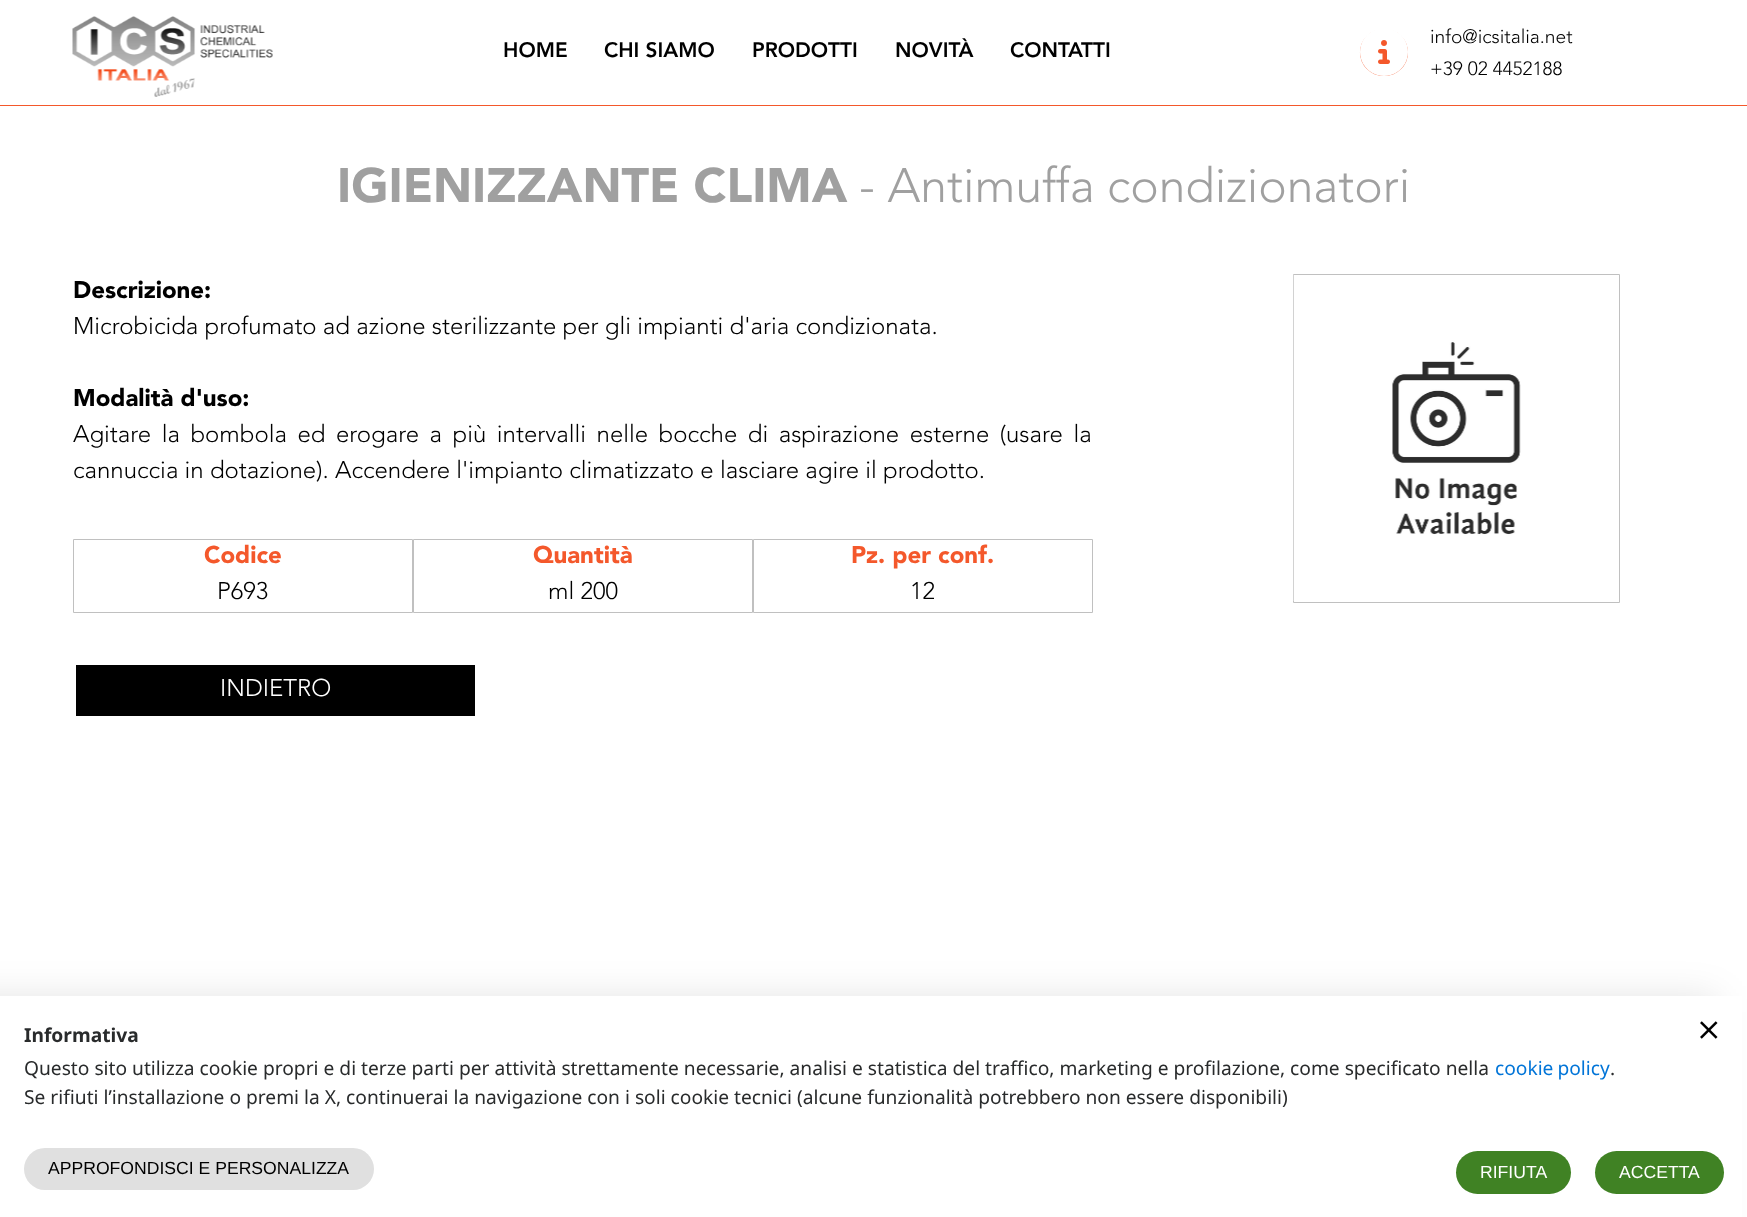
<svg xmlns="http://www.w3.org/2000/svg" width="1747" height="1217">
<style>
.a{font:900 20.75px 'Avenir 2';fill:#000}
.b{font:300 19.2px Avenir;fill:#000}
.c{font:900 48px Avenir;fill:#a0a0a0}
.d{font:300 48px Avenir;fill:#a0a0a0}
.e{font:900 24px Avenir;fill:#000}
.f{font:300 24px Avenir;fill:#000}
.g{font:900 24px Avenir;fill:#f4582b}
.h{font:300 24px Avenir;fill:#fff}
.i{font:bold 19.2px Noto Sans;fill:#292b2c}
.j{font:19.2px Noto Sans;fill:#292b2c}
.k{font:19.2px Noto Sans;fill:#0275d8}
.l{font:17.6px Liberation Sans;fill:#000}
.m{font:17.6px Liberation Sans;fill:#fff}
</style>
<rect width="100%" height="100%" fill="#fff"/>
<path fill="#f4582b" d="M0 105h1747v1H0z"/>
<image href="1.png" x="72" y="16" width="201" height="81"/>
<rect fill="#f4582b" x="1360" y="29" width="48" height="47" rx="23.5"/>
<image href="2.png" x="1360" y="29" width="48" height="47"/>
<path fill="none" stroke="#c0c0c0" d="M73.5 539.5h339v73H73.5z"/>
<path fill="none" stroke="#c0c0c0" d="M413.5 539.5h339v73H413.5z"/>
<path fill="none" stroke="#c0c0c0" d="M753.5 539.5h339v73H753.5z"/>
<path fill="none" stroke="#c0c0c0" d="M1293.5 274.5h326v328H1293.5z"/>
<image href="3.png" x="1293" y="275" width="228" height="326"/>
<path fill="#000" d="M76 665h399v51H76z"/>
<path fill="#0000001f" filter="blur(19px)" d="M-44 999h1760v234H-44z"/>
<path fill="#fff" d="M0 996h1742v221H0z"/>
<image href="4.png" x="1700" y="1021" width="18" height="18"/>
<rect fill="#e0e0e0" x="24" y="1148" width="350" height="42" rx="21"/>
<rect fill="#408224" x="1456" y="1151" width="115" height="43" rx="21.5"/>
<rect fill="#408224" x="1595" y="1151" width="129" height="43" rx="21.5"/>
<text class="a" x="503" y="57">HOME</text>
<text class="a" x="604" y="57">CHI SIAMO</text>
<text class="a" x="752" y="57">PRODOTTI</text>
<text class="a" x="895" y="57">NOVITÀ</text>
<text class="a" x="1010" y="57">CONTATTI</text>
<text class="b" x="1430" y="43">info@icsitalia.net</text>
<text class="b" x="1430" y="75">+39 02 4452188</text>
<text class="c" x="337" y="202">IGIENIZZANTE CLIMA</text>
<text class="d" x="859" y="202">- Antimuffa condizionatori</text>
<text class="e" x="73" y="298">Descrizione:</text>
<text class="f" x="73" y="334">Microbicida profumato ad azione sterilizzante per gli impianti d'aria condizionata.</text>
<text class="e" x="73" y="406">Modalità d'uso:</text>
<text class="f" x="73" y="442" word-spacing="4.25">Agitare la bombola ed erogare a più intervalli nelle bocche di aspirazione esterne (usare la</text>
<text class="f" x="73" y="478">cannuccia in dotazione). Accendere l'impianto climatizzato e lasciare agire il prodotto.</text>
<text class="g" x="204" y="563">Codice</text>
<text class="f" x="217" y="599">P693</text>
<text class="g" x="533" y="563">Quantità</text>
<text class="f" x="548" y="599">ml 200</text>
<text class="g" x="851" y="563">Pz. per conf.</text>
<text class="f" x="910" y="599">12</text>
<text class="h" x="220" y="696">INDIETRO</text>
<text class="i" x="24" y="1042">Informativa</text>
<text class="j" x="24" y="1075">Questo sito utilizza cookie propri e di terze parti per attività strettamente necessarie, analisi e statistica del traffico, marketing e profilazione, come specificato nella</text>
<text class="k" x="1495" y="1075" word-spacing="-1">cookie policy</text>
<text class="j" x="1610" y="1075">.</text>
<text class="j" x="24" y="1104">Se rifiuti l’installazione o premi la X, continuerai la navigazione con i soli cookie tecnici (alcune funzionalità potrebbero non essere disponibili)</text>
<text class="l" x="48" y="1174">APPROFONDISCI E PERSONALIZZA</text>
<text class="m" x="1480" y="1178">RIFIUTA</text>
<text class="m" x="1619" y="1178">ACCETTA</text>
</svg>
